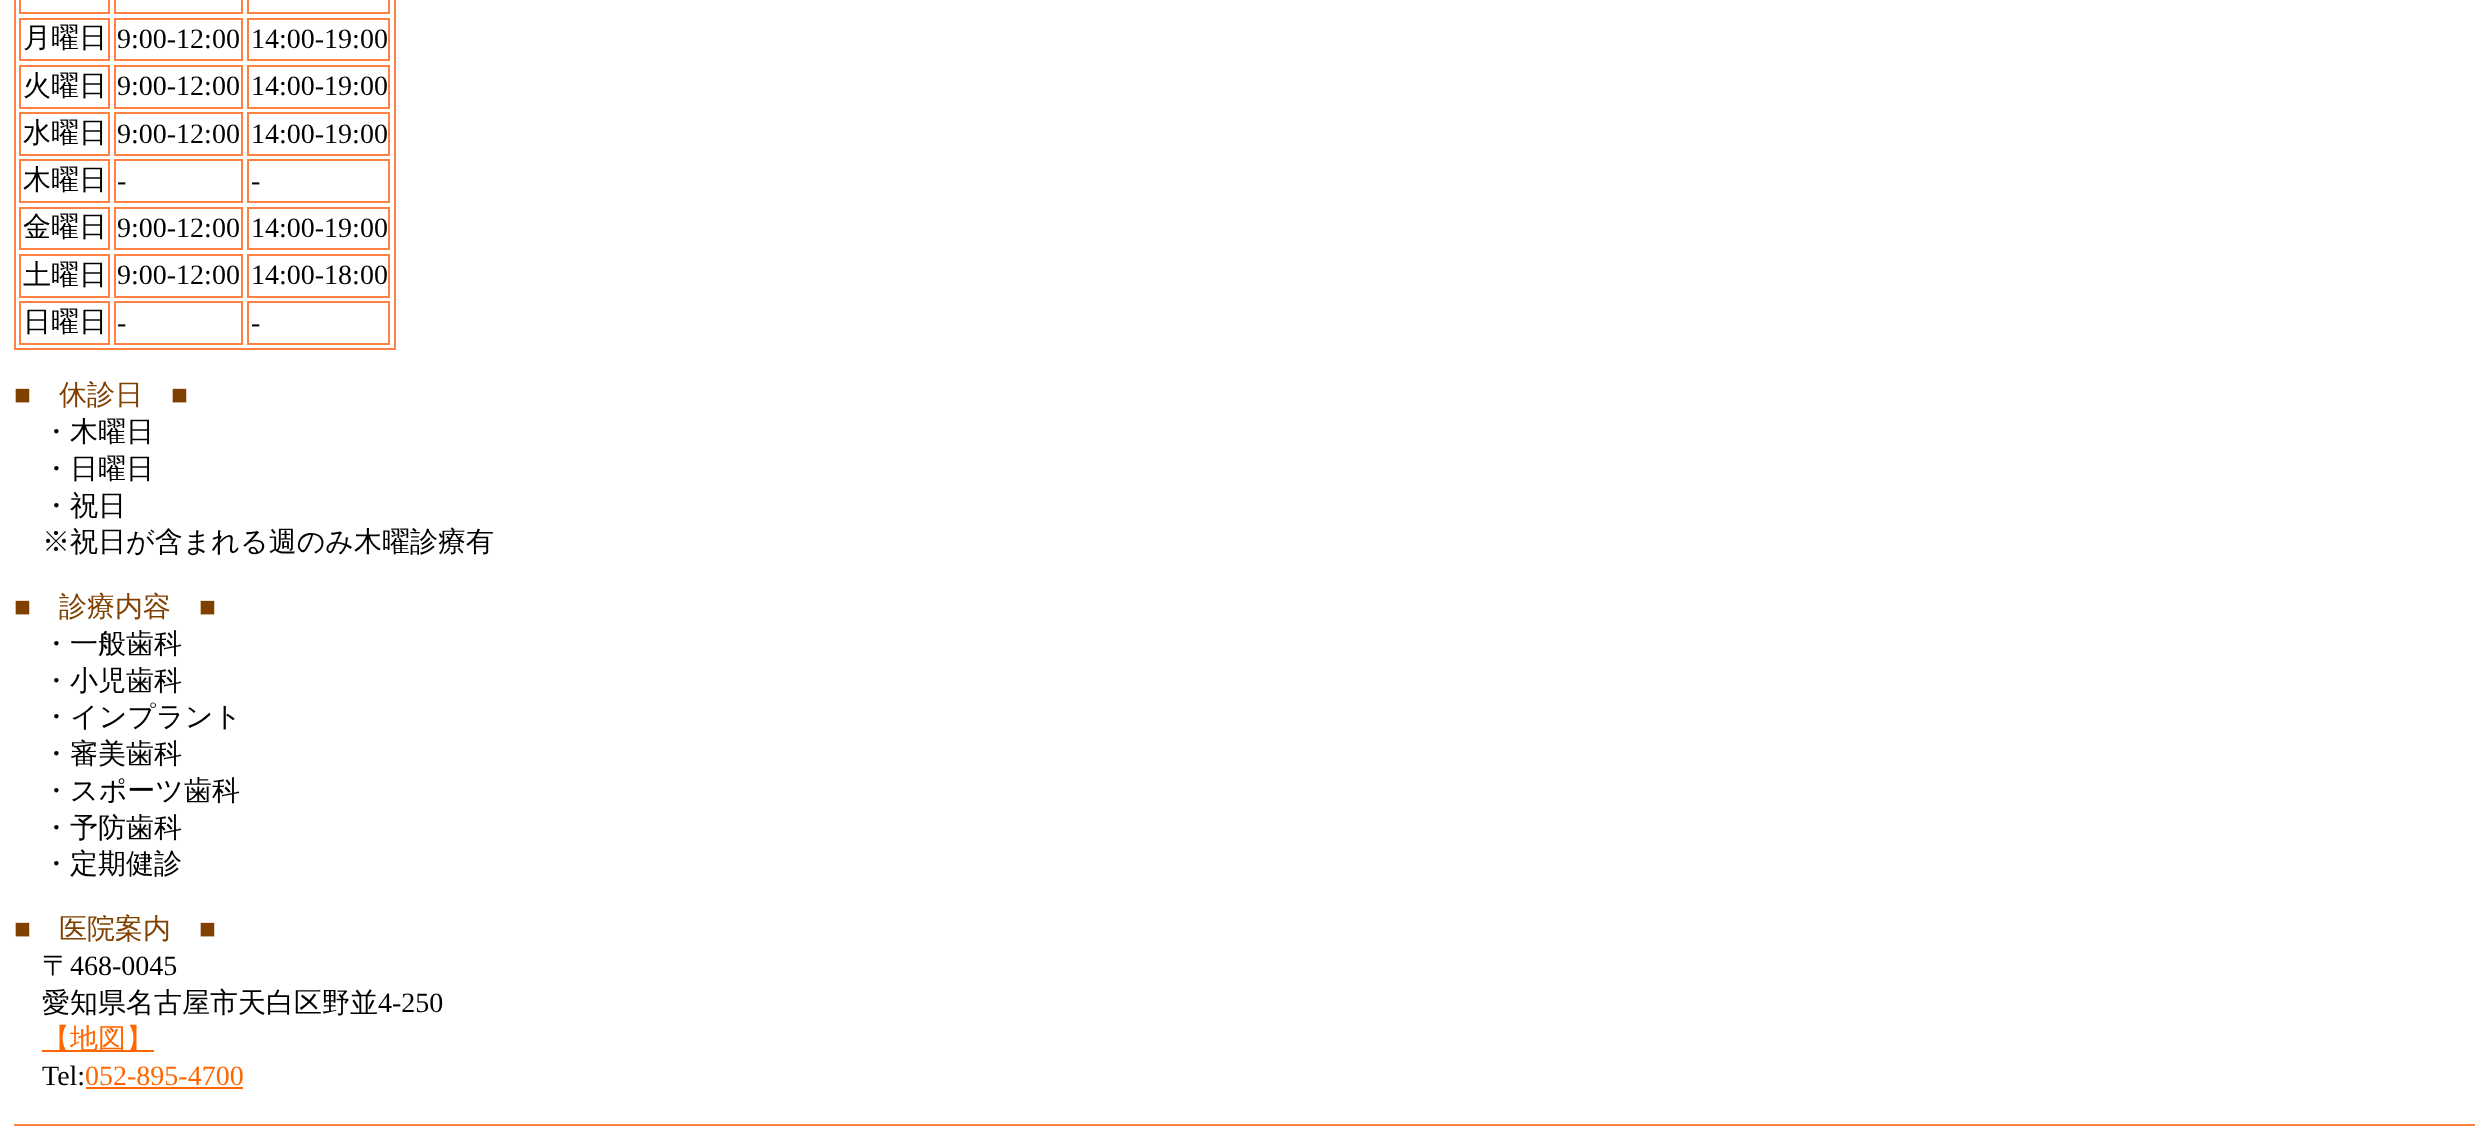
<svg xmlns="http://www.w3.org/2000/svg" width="2487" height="1139">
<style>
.a{font:500 28px WenQuanYi Zen Hei;fill:#000}
.b{font:28px Liberation Serif;fill:#000}
.c{font:28px Liberation Serif;fill:#804000}
.d{font:500 28px WenQuanYi Zen Hei;fill:#804000}
.e{font:500 28px WenQuanYi Zen Hei;fill:#f60}
.f{font:28px Liberation Serif;fill:#f60}
</style>
<rect width="100%" height="100%" fill="#fff"/>
<path fill="none" stroke="#ff8040" stroke-width="2" d="M15 -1h380v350H15z"/>
<path fill="none" stroke="#ff8040" stroke-width="2" d="M20 -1h89v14H20z"/>
<path fill="none" stroke="#ff8040" stroke-width="2" d="M115 -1h127v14H115z"/>
<path fill="none" stroke="#ff8040" stroke-width="2" d="M248 -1h141v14H248z"/>
<path fill="none" stroke="#ff8040" stroke-width="2" d="M20 19h89v41H20z"/>
<path fill="none" stroke="#ff8040" stroke-width="2" d="M115 19h127v41H115z"/>
<path fill="none" stroke="#ff8040" stroke-width="2" d="M248 19h141v41H248z"/>
<path fill="none" stroke="#ff8040" stroke-width="2" d="M20 66h89v42H20z"/>
<path fill="none" stroke="#ff8040" stroke-width="2" d="M115 66h127v42H115z"/>
<path fill="none" stroke="#ff8040" stroke-width="2" d="M248 66h141v42H248z"/>
<path fill="none" stroke="#ff8040" stroke-width="2" d="M20 113h89v42H20z"/>
<path fill="none" stroke="#ff8040" stroke-width="2" d="M115 113h127v42H115z"/>
<path fill="none" stroke="#ff8040" stroke-width="2" d="M248 113h141v42H248z"/>
<path fill="none" stroke="#ff8040" stroke-width="2" d="M20 160h89v42H20z"/>
<path fill="none" stroke="#ff8040" stroke-width="2" d="M115 160h127v42H115z"/>
<path fill="none" stroke="#ff8040" stroke-width="2" d="M248 160h141v42H248z"/>
<path fill="none" stroke="#ff8040" stroke-width="2" d="M20 208h89v41H20z"/>
<path fill="none" stroke="#ff8040" stroke-width="2" d="M115 208h127v41H115z"/>
<path fill="none" stroke="#ff8040" stroke-width="2" d="M248 208h141v41H248z"/>
<path fill="none" stroke="#ff8040" stroke-width="2" d="M20 255h89v42H20z"/>
<path fill="none" stroke="#ff8040" stroke-width="2" d="M115 255h127v42H115z"/>
<path fill="none" stroke="#ff8040" stroke-width="2" d="M248 255h141v42H248z"/>
<path fill="none" stroke="#ff8040" stroke-width="2" d="M20 302h89v42H20z"/>
<path fill="none" stroke="#ff8040" stroke-width="2" d="M115 302h127v42H115z"/>
<path fill="none" stroke="#ff8040" stroke-width="2" d="M248 302h141v42H248z"/>
<path fill="#f60" d="M42 1050h112v2H42z"/>
<path fill="#f60" d="M86 1087h157v2H86z"/>
<path fill="#ff8040" d="M14 1124h2461v2H14z"/>
<text class="a" x="23" y="47">月曜日</text>
<text class="b" x="117" y="48">9:00-12:00</text>
<text class="b" x="251" y="48">14:00-19:00</text>
<text class="a" x="23" y="95">火曜日</text>
<text class="b" x="117" y="95">9:00-12:00</text>
<text class="b" x="251" y="95">14:00-19:00</text>
<text class="a" x="23" y="142">水曜日</text>
<text class="b" x="117" y="143">9:00-12:00</text>
<text class="b" x="251" y="143">14:00-19:00</text>
<text class="a" x="23" y="189">木曜日</text>
<text class="b" x="117" y="190">-</text>
<text class="b" x="251" y="190">-</text>
<text class="a" x="23" y="236">金曜日</text>
<text class="b" x="117" y="237">9:00-12:00</text>
<text class="b" x="251" y="237">14:00-19:00</text>
<text class="a" x="23" y="284">土曜日</text>
<text class="b" x="117" y="284">9:00-12:00</text>
<text class="b" x="251" y="284">14:00-18:00</text>
<text class="a" x="23" y="331">日曜日</text>
<text class="b" x="117" y="332">-</text>
<text class="b" x="251" y="332">-</text>
<text class="c" x="14" y="404">■</text>
<text class="d" x="59" y="404">休診日</text>
<text class="c" x="171" y="404">■</text>
<text class="a" x="42" y="441">・木曜日</text>
<text class="a" x="42" y="478">・日曜日</text>
<text class="a" x="42" y="515">・祝日</text>
<text class="a" x="42" y="551">※祝日が含まれる週のみ木曜診療有</text>
<text class="c" x="14" y="616">■</text>
<text class="d" x="59" y="616">診療内容</text>
<text class="c" x="199" y="616">■</text>
<text class="a" x="42" y="653">・一般歯科</text>
<text class="a" x="42" y="690">・小児歯科</text>
<text class="a" x="42" y="726">・インプラント</text>
<text class="a" x="42" y="763">・審美歯科</text>
<text class="a" x="42" y="800">・スポーツ歯科</text>
<text class="a" x="42" y="837">・予防歯科</text>
<text class="a" x="42" y="873">・定期健診</text>
<text class="c" x="14" y="938">■</text>
<text class="d" x="59" y="938">医院案内</text>
<text class="c" x="199" y="938">■</text>
<text class="a" x="42" y="975">〒</text>
<text class="b" x="70" y="975">468-0045</text>
<text class="a" x="42" y="1012">愛知県名古屋市天白区野並</text>
<text class="b" x="378" y="1012">4-250</text>
<text class="e" x="42" y="1048">【地図】</text>
<text class="b" x="42" y="1085">Tel:</text>
<text class="f" x="85" y="1085">052-895-4700</text>
</svg>
